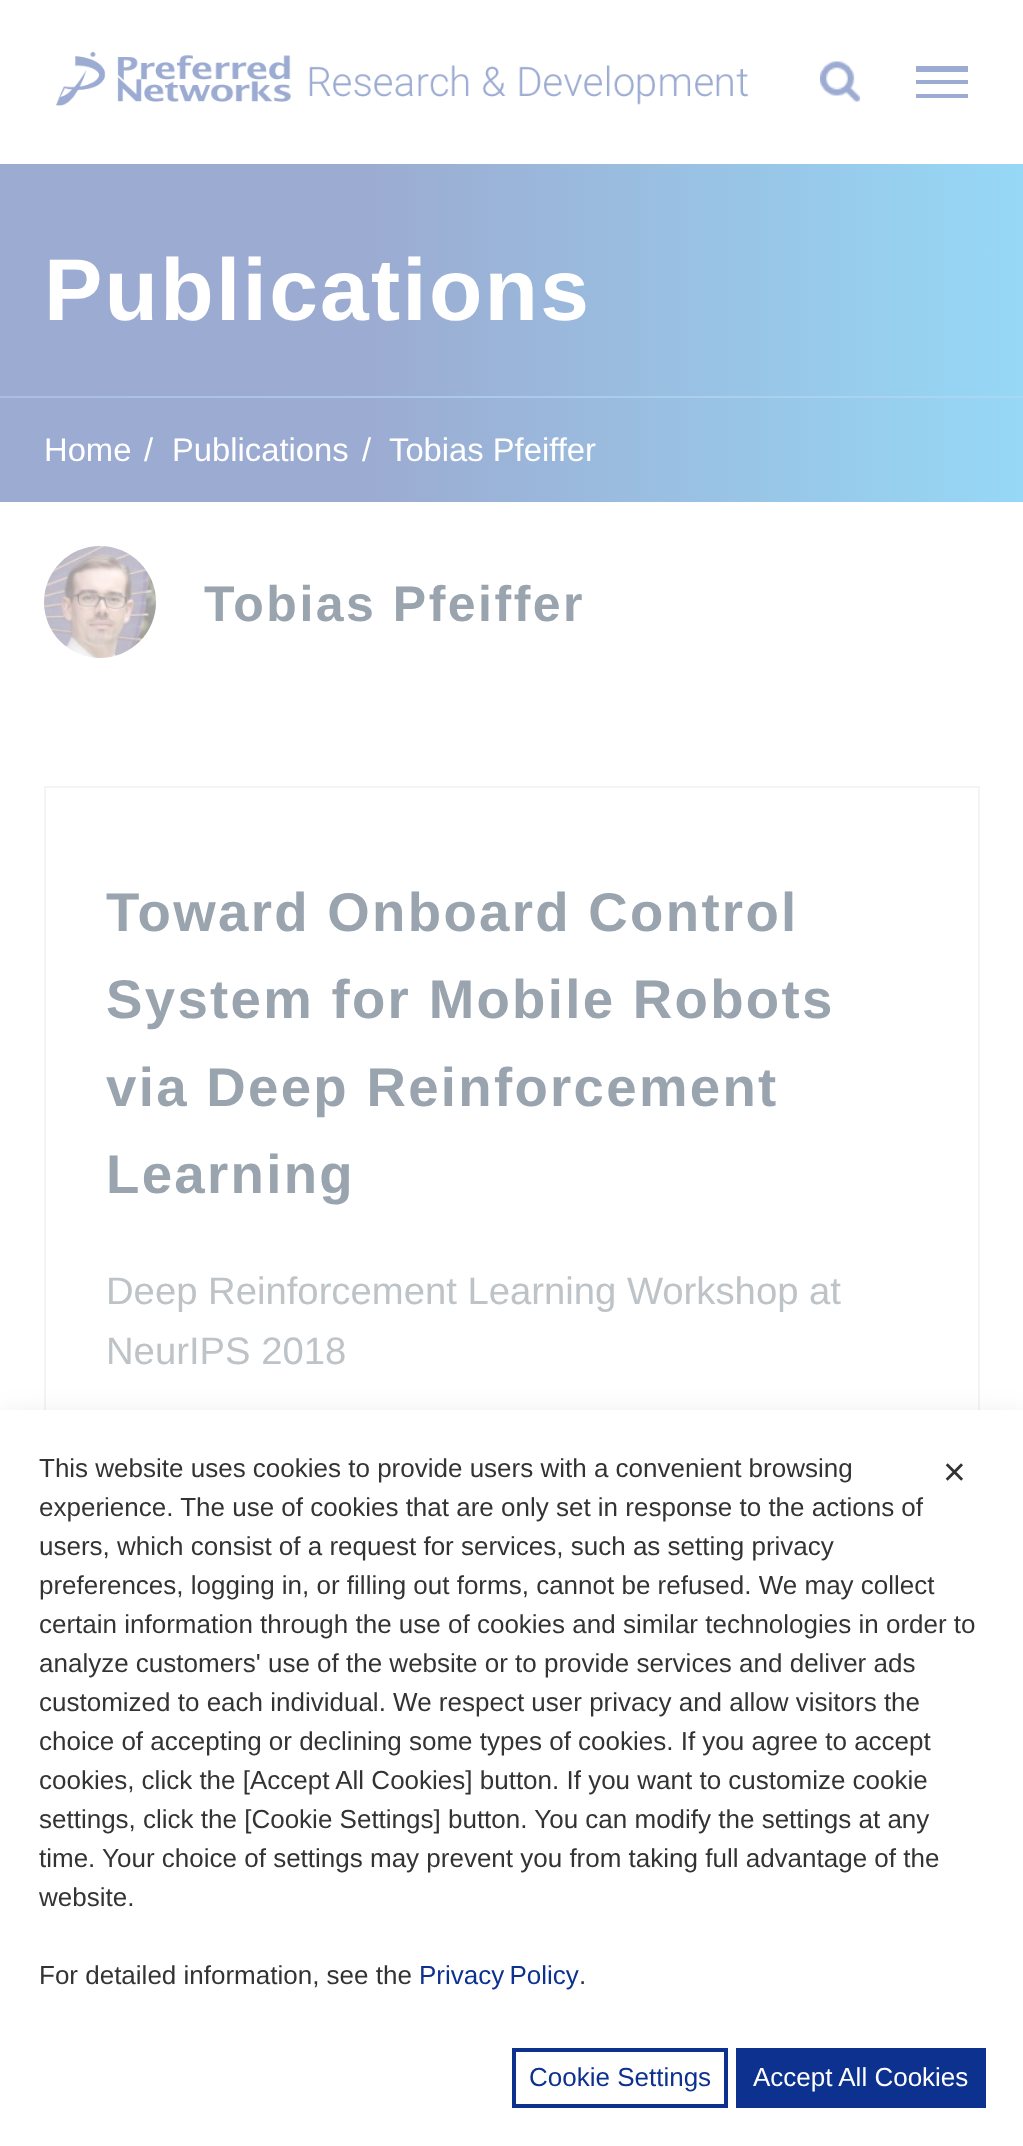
<svg xmlns="http://www.w3.org/2000/svg" width="1023" height="2146">
<style>
.a{font:bold 87.5px Liberation Sans;letter-spacing:2.25px;fill:#fff}
.b{font:32.75px Liberation Sans;fill:#fff}
.c{font:bold 50px Liberation Sans;letter-spacing:2.5px;fill:#99a4af}
.d{font:bold 54.6px Liberation Sans;letter-spacing:2.3px;fill:#99a4af}
.e{font:38.25px Liberation Sans;fill:#bec3c8}
.f{font:26px Liberation Sans;fill:#333}
.g{font:26px Liberation Sans;fill:#0d318f}
.h{font:39px Liberation Sans;fill:#333}
.i{font:26px Liberation Sans;fill:#fff}
</style>
<defs>
<linearGradient id="g1" gradientUnits="userSpaceOnUse" x1="0" y1="333" x2="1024" y2="333"><stop offset="0.36" stop-color="#9cabd1"/><stop offset="1" stop-color="#96d8f6"/></linearGradient>
<linearGradient id="g2" gradientUnits="userSpaceOnUse" x1="0" y1="397" x2="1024" y2="397"><stop offset="0" stop-color="#abbde4"/><stop offset="1" stop-color="#abd7f1"/></linearGradient>
</defs>
<rect width="100%" height="100%" fill="#fff"/>
<image href="1.png" x="56" y="52" width="692" height="54"/>
<image href="2.png" x="820" y="61" width="40" height="41"/>
<path fill="#9cabd1" d="M916 66h52v6H916z"/>
<path fill="#9cabd1" d="M916 80h52v4H916z"/>
<path fill="#9cabd1" d="M916 94h52v4H916z"/>
<path fill="url(#g1)" d="M0 164h1023v338H0z"/>
<path fill="url(#g2)" d="M0 396h1023v2H0z"/>
<image href="3.png" x="44" y="546" width="112" height="112"/>
<path fill="none" stroke="#f4f4f4" stroke-width="2" d="M45 787h934v824H45z"/>
<path fill="#0000001a" filter="blur(15px)" d="M0 1418h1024v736H0z"/>
<path fill="#fff" d="M0 1410h1023v736H0z"/>
<path fill="none" stroke="#0d318f" stroke-width="4" d="M514 2050h212v56H514z"/>
<path fill="#0d318f" d="M736 2048h250v60H736z"/>
<text class="a" x="44" y="320">Publications</text>
<text class="b" x="44" y="461">Home</text>
<text class="b" x="144" y="461">/</text>
<text class="b" x="172" y="461">Publications</text>
<text class="b" x="362" y="461">/</text>
<text class="b" x="389" y="461">Tobias Pfeiffer</text>
<text class="c" x="204" y="621">Tobias Pfeiffer</text>
<text class="d" x="106" y="931">Toward Onboard Control</text>
<text class="d" x="106" y="1018">System for Mobile Robots</text>
<text class="d" x="106" y="1106">via Deep Reinforcement</text>
<text class="d" x="106" y="1193">Learning</text>
<text class="e" x="106" y="1304">Deep Reinforcement Learning Workshop at</text>
<text class="e" x="106" y="1364">NeurIPS 2018</text>
<text class="f" x="39" y="1477">This website uses cookies to provide users with a convenient browsing</text>
<text class="f" x="39" y="1516">experience. The use of cookies that are only set in response to the actions of</text>
<text class="f" x="39" y="1555">users, which consist of a request for services, such as setting privacy</text>
<text class="f" x="39" y="1594">preferences, logging in, or filling out forms, cannot be refused. We may collect</text>
<text class="f" x="39" y="1633">certain information through the use of cookies and similar technologies in order to</text>
<text class="f" x="39" y="1672">analyze customers' use of the website or to provide services and deliver ads</text>
<text class="f" x="39" y="1711">customized to each individual. We respect user privacy and allow visitors the</text>
<text class="f" x="39" y="1750">choice of accepting or declining some types of cookies. If you agree to accept</text>
<text class="f" x="39" y="1789">cookies, click the [Accept All Cookies] button. If you want to customize cookie</text>
<text class="f" x="39" y="1828">settings, click the [Cookie Settings] button. You can modify the settings at any</text>
<text class="f" x="39" y="1867">time. Your choice of settings may prevent you from taking full advantage of the</text>
<text class="f" x="39" y="1906">website.</text>
<text class="f" x="39" y="1984">For detailed information, see the</text>
<text class="g" x="419" y="1984" word-spacing="-2">Privacy Policy</text>
<text class="f" x="579" y="1984">.</text>
<text class="h" x="943" y="1485">×</text>
<text class="g" x="529" y="2086">Cookie Settings</text>
<text class="i" x="753" y="2086">Accept All Cookies</text>
</svg>
